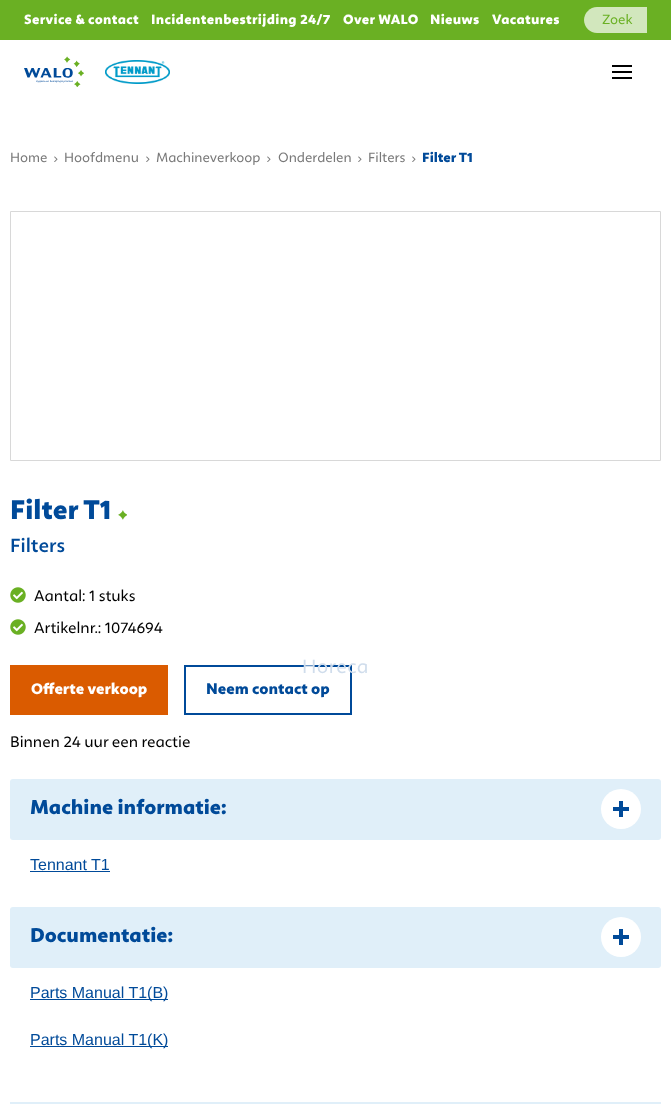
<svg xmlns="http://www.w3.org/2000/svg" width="671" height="1104">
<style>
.a{font:900 14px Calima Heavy;letter-spacing:0.35px;fill:#fff}
.b{font:14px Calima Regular;fill:#6ab023}
.c{font:20px Calima Regular;letter-spacing:0.5px;fill:#d0ddec}
.d{font:14px Calima Regular;fill:#787878}
.e{font:900 14px Calima Heavy;fill:#004a99}
.f{font:900 28px Calima Heavy;fill:#004a99}
.g{font:600 20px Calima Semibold;fill:#004a99}
.h{font:16px Calima Regular;fill:#000}
.i{font:900 16px Calima Heavy;fill:#fff}
.j{font:900 16px Calima Heavy;fill:#004a99}
.k{font:900 21px Calima Heavy;fill:#004a99}
.l{font:16px Liberation Sans;fill:#004a99}
</style>
<rect width="100%" height="100%" fill="#fff"/>
<path fill="#6ab023" d="M0 0h671v40H0z"/>
<path fill="#d2e7bd" d="M597 7h50v26h-50c-7 0-13-6-13-13c0-7 6-13 13-13z"/>
<image href="1.png" x="24" y="56" width="60" height="31"/>
<image href="2.png" x="105" y="60" width="65" height="24"/>
<path fill="#000" d="M612 71h20v2H612z"/>
<path fill="#000" d="M612 65h20v2H612z"/>
<path fill="#000" d="M612 77h20v2H612z"/>
<image href="3.png" x="54" y="156" width="4" height="6"/>
<image href="3.png" x="146" y="156" width="4" height="6"/>
<image href="3.png" x="267" y="156" width="4" height="6"/>
<image href="3.png" x="358" y="156" width="4" height="6"/>
<image href="3.png" x="412" y="156" width="4" height="6"/>
<path fill="none" stroke="#d8d8d8" d="M10.5 211.5h650v249H10.5z"/>
<image href="4.png" x="118" y="510" width="9" height="10"/>
<image href="5.png" x="10" y="587" width="16" height="16"/>
<image href="5.png" x="10" y="619" width="16" height="16"/>
<path fill="#da5b00" d="M10 665h158v50H10z"/>
<path fill="none" stroke="#004a99" stroke-width="2" d="M185 666h166v48H185z"/>
<rect fill="#e0eff9" x="10" y="779" width="651" height="61" rx="3"/>
<circle fill="#fff" cx="621" cy="809" r="20"/>
<path fill="#004a99" d="M619 801h4v16H619z"/>
<path fill="#004a99" d="M613 807h16v4H613z"/>
<path fill="#004a99" d="M30 871h80v1H30z"/>
<rect fill="#e0eff9" x="10" y="907" width="651" height="61" rx="3"/>
<circle fill="#fff" cx="621" cy="937" r="20"/>
<path fill="#004a99" d="M619 929h4v16H619z"/>
<path fill="#004a99" d="M613 935h16v4H613z"/>
<path fill="#004a99" d="M30 999h138v1H30z"/>
<path fill="#004a99" d="M30 1046h138v1H30z"/>
<path fill="#e0eff9" d="M10 1102h651v2H10z"/>
<text class="a" x="24" y="24">Service &amp; contact</text>
<text class="a" x="151" y="24">Incidentenbestrijding 24/7</text>
<text class="a" x="343" y="24">Over WALO</text>
<text class="a" x="430" y="24">Nieuws</text>
<text class="a" x="492" y="24">Vacatures</text>
<text class="b" x="602" y="24">Zoek</text>
<text class="c" x="302" y="673">Horeca</text>
<text class="d" x="10" y="162">Home</text>
<text class="d" x="64" y="162">Hoofdmenu</text>
<text class="d" x="156" y="162">Machineverkoop</text>
<text class="d" x="278" y="162">Onderdelen</text>
<text class="d" x="368" y="162">Filters</text>
<text class="e" x="422" y="162">Filter T1</text>
<text class="f" x="10" y="519">Filter T1</text>
<text class="g" x="10" y="552">Filters</text>
<text class="h" x="34" y="601">Aantal: 1 stuks</text>
<text class="h" x="34" y="633">Artikelnr.: 1074694</text>
<text class="i" x="31" y="694">Offerte verkoop</text>
<text class="j" x="206" y="694">Neem contact op</text>
<text class="h" x="10" y="747">Binnen 24 uur een reactie</text>
<text class="k" x="30" y="814">Machine informatie:</text>
<text class="l" x="30" y="870">Tennant T1</text>
<text class="k" x="30" y="942">Documentatie:</text>
<text class="l" x="30" y="998">Parts Manual T1(B)</text>
<text class="l" x="30" y="1045">Parts Manual T1(K)</text>
</svg>
